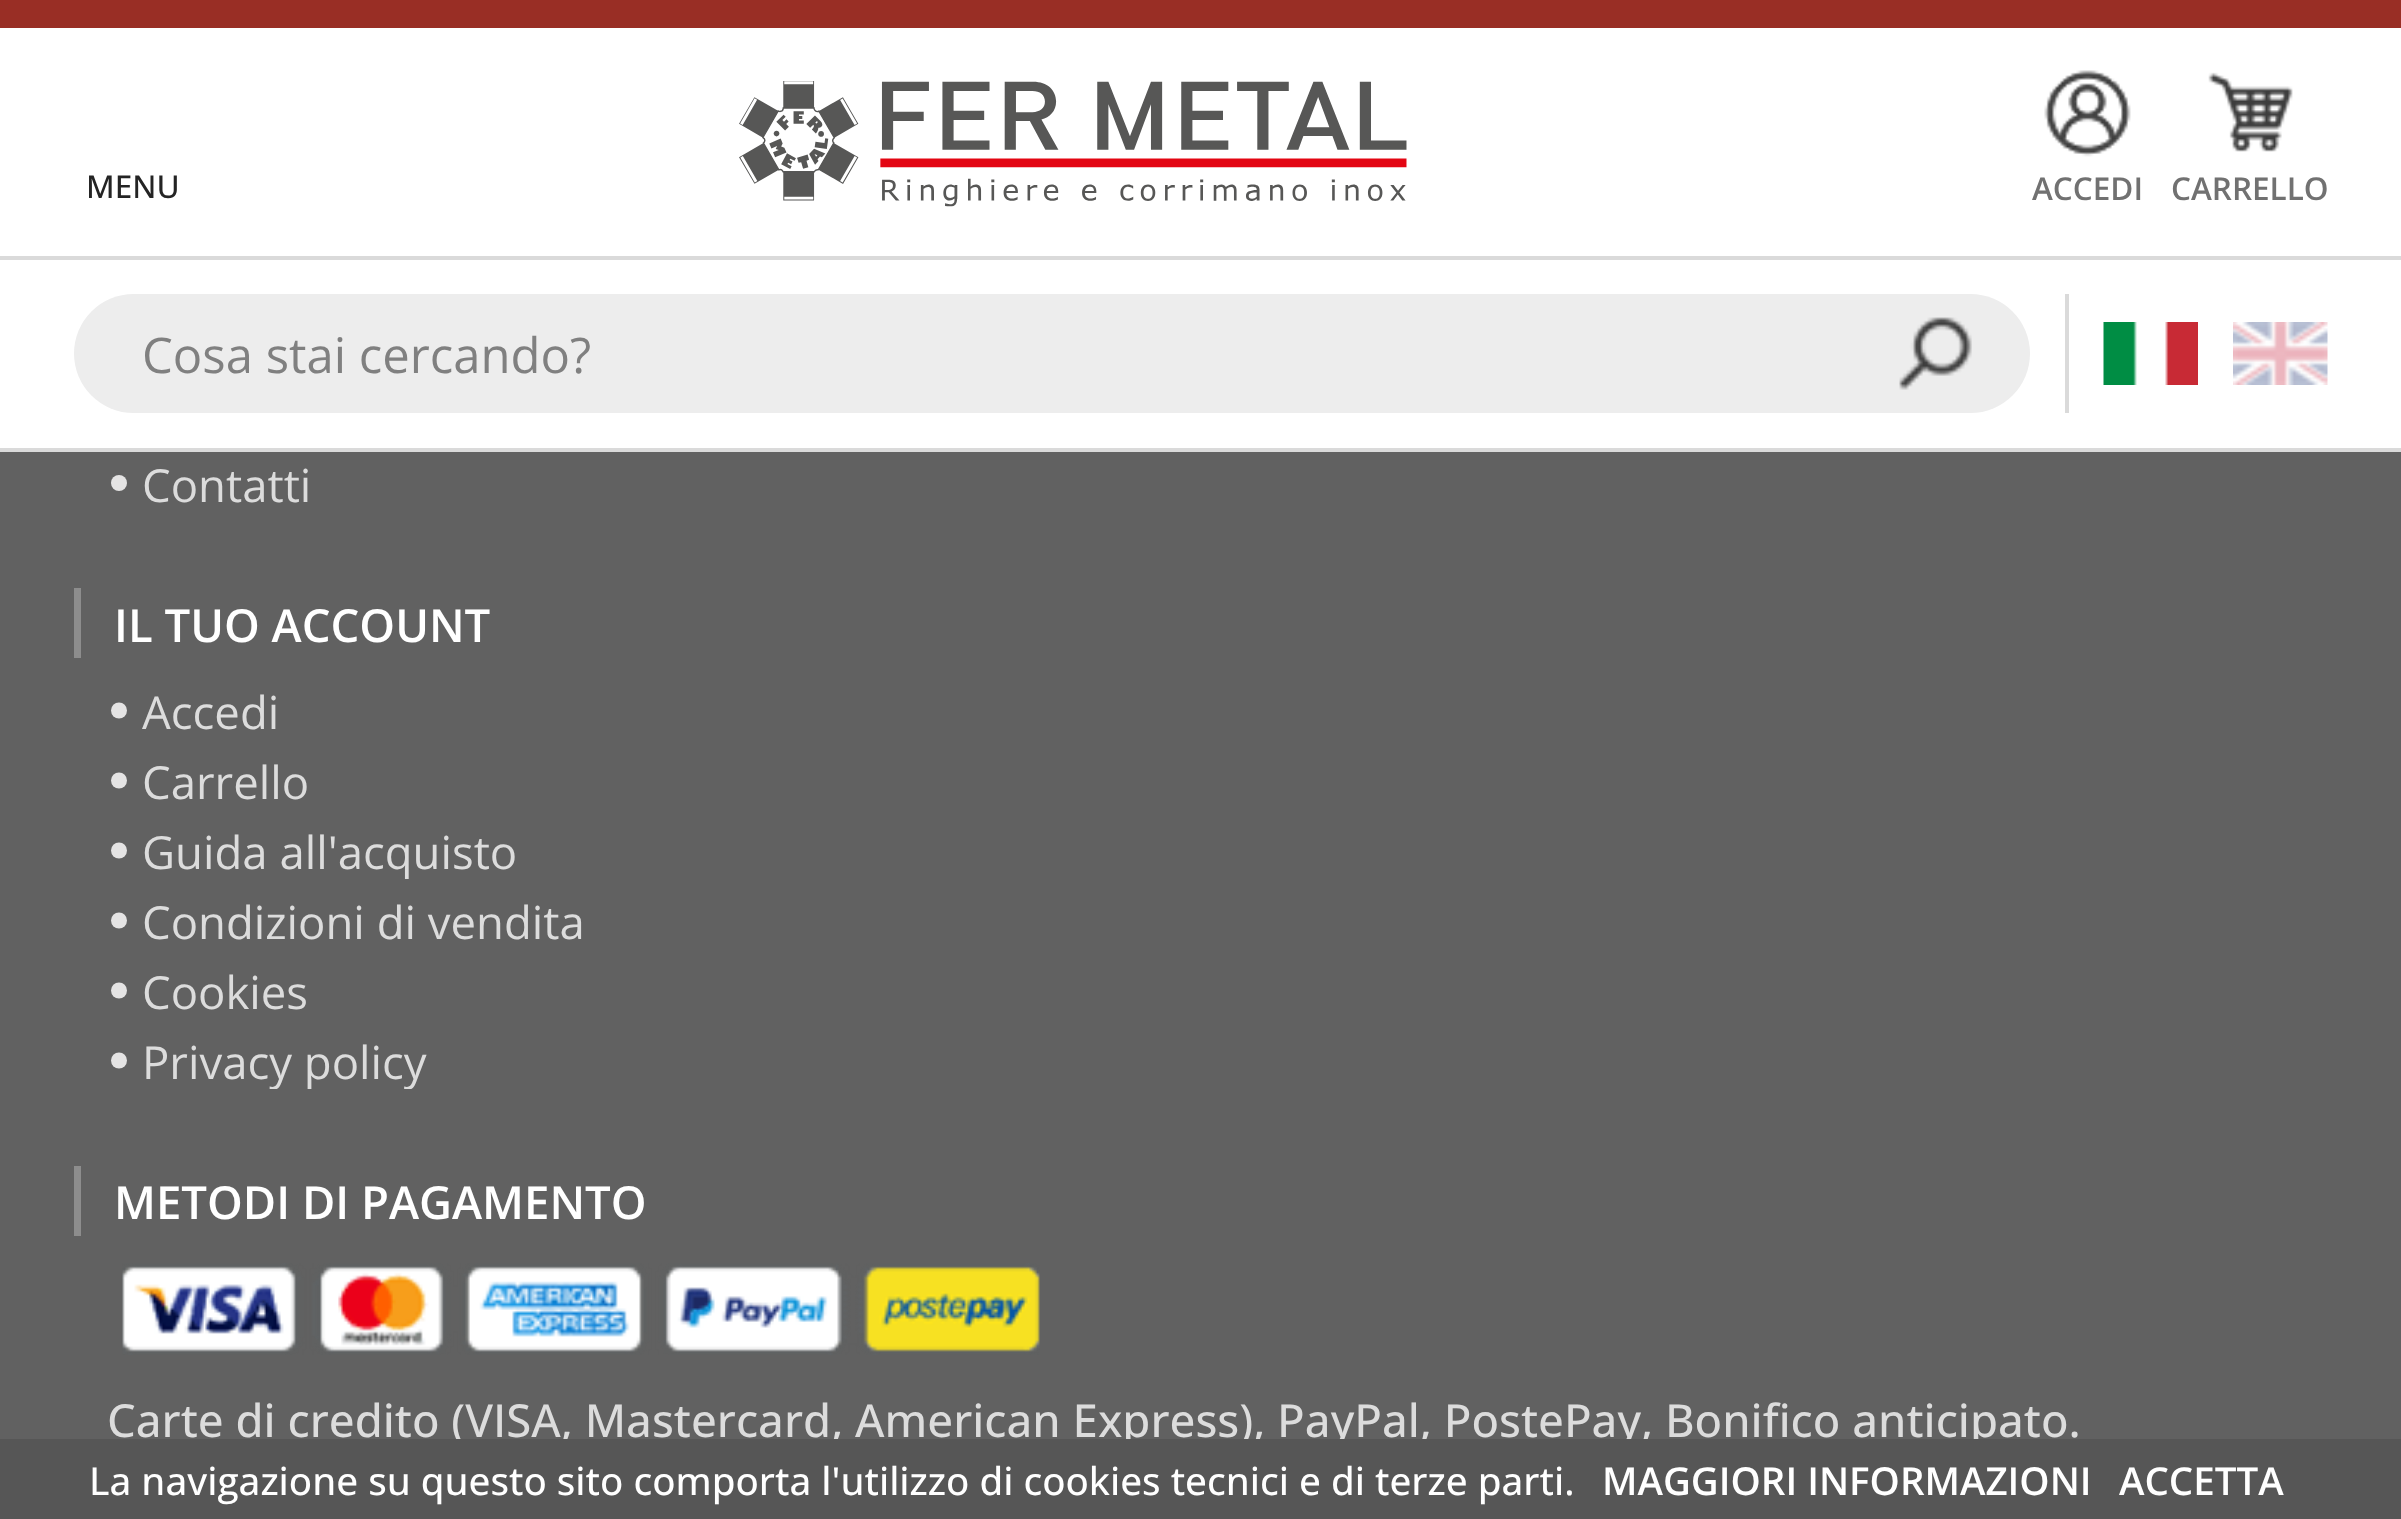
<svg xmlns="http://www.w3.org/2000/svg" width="2401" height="1519">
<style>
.a{font:500 31.5px Open Sans;fill:#242424}
.b{font:600 31.5px Open Sans;fill:#717171}
.c{font:49px Open Sans;fill:#808080}
.d{font:45.5px Open Sans;fill:#dcdcdc}
.e{font:600 45.5px Open Sans;fill:#fff}
.f{font:500 45.5px Open Sans;fill:#dcdcdc}
.g{font:500 38.5px Open Sans;fill:#fff}
.h{font:600 38.5px Open Sans;fill:#fff}
</style>
<defs>
<clipPath id="clip1"><path d="M109 823h2184v56H109z"/></clipPath>
<clipPath id="clip2"><path d="M109 1033h2184v56H109z"/></clipPath>
</defs>
<rect width="100%" height="100%" fill="#616161"/>
<path fill="#fff" d="M0 28h2401v420H0z"/>
<path fill="#992e25" d="M0 0h2401v28H0z"/>
<image href="1.png" x="739" y="81" width="668" height="126"/>
<image href="2.png" x="2044" y="70" width="87" height="87"/>
<image href="3.png" x="2208" y="72" width="85" height="80"/>
<path fill="#dadada" d="M0 256h2401v4H0z"/>
<path fill="#dadada" d="M0 448h2401v4H0z"/>
<rect fill="#ededed" x="74" y="294" width="1956" height="119" rx="59.5"/>
<image href="4.png" x="1899" y="317" width="73" height="73"/>
<path fill="#dadada" d="M2065 294h4v119H2065z"/>
<image href="5.png" x="2103" y="322" width="95" height="63"/>
<image href="6.png" x="2233" y="322" width="95" height="63"/>
<circle fill="#e5e4e4" cx="119" cy="483" r="8"/>
<path fill="#8d8d8d" d="M74 588h7v70H74z"/>
<circle fill="#e5e4e4" cx="119" cy="710.5" r="8"/>
<circle fill="#e5e4e4" cx="119" cy="780.5" r="8"/>
<circle fill="#e5e4e4" cx="119" cy="850.5" r="8"/>
<circle fill="#e5e4e4" cx="119" cy="920.5" r="8"/>
<circle fill="#e5e4e4" cx="119" cy="990.5" r="8"/>
<circle fill="#e5e4e4" cx="119" cy="1060.5" r="8"/>
<path fill="#8d8d8d" d="M74 1166h7v70H74z"/>
<image href="7.png" x="122" y="1263" width="918" height="92"/>
<text class="a" x="86" y="198">MENU</text>
<text class="b" x="2032" y="200">ACCEDI</text>
<text class="b" x="2171" y="200">CARRELLO</text>
<text class="c" x="142" y="373">Cosa stai cercando?</text>
<text class="d" x="142" y="502">Contatti</text>
<text class="e" x="114" y="642">IL TUO ACCOUNT</text>
<text class="d" x="142" y="729">Accedi</text>
<text class="d" x="142" y="799">Carrello</text>
<g clip-path="url(#clip1)">
<text class="d" x="142" y="869">Guida all'acquisto</text>
</g>
<text class="d" x="142" y="939">Condizioni di vendita</text>
<text class="d" x="142" y="1009">Cookies</text>
<g clip-path="url(#clip2)">
<text class="d" x="142" y="1079">Privacy policy</text>
</g>
<text class="e" x="114" y="1219">METODI DI PAGAMENTO</text>
<text class="f" x="107" y="1437">Carte di credito (VISA, Mastercard, American Express), PayPal, PostePay, Bonifico anticipato.</text>
<path fill="#565656" d="M0 1439h2401v80H0z"/>
<text class="g" x="89" y="1495">La navigazione su questo sito comporta l'utilizzo di cookies tecnici e di terze parti.</text>
<text class="h" x="1602" y="1495">MAGGIORI INFORMAZIONI</text>
<text class="h" x="2119" y="1495">ACCETTA</text>
</svg>
